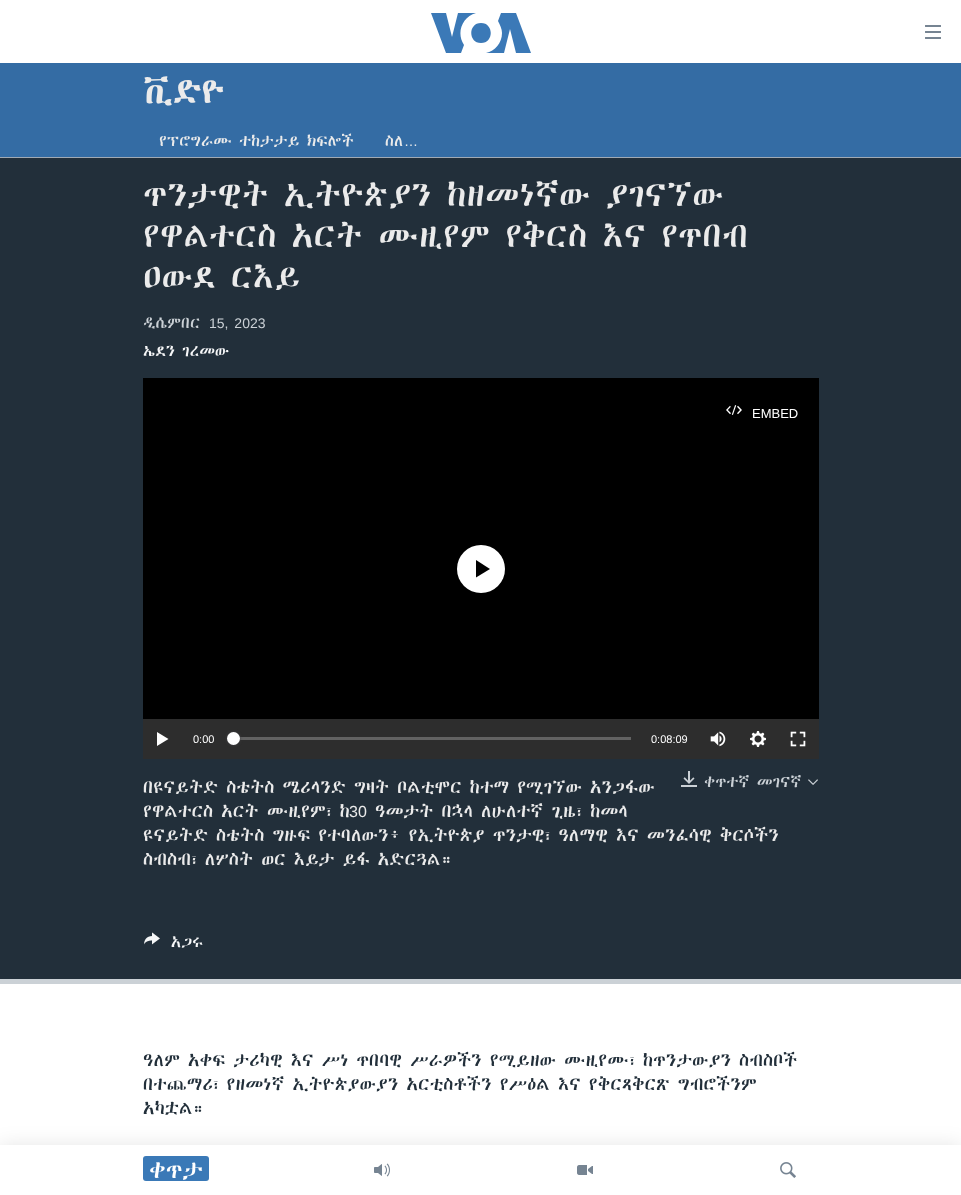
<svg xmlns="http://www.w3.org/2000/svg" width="961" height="1195">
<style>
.a{font:bold 30.4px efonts;fill:#ebebeb}
.b{font:14px efonts;fill:#ebebeb}
.c{font:14px Liberation Sans;fill:#ebebeb}
.d{font:30.4px efonts;fill:#ebebeb}
.e{font:14px efonts;fill:#cbd1d6}
.f{font:14px Liberation Sans;fill:#cbd1d6}
.g{font:14px efonts;fill:#f6f7f8}
.h{font:13px Liberation Sans;fill:#fff}
.i{font:11px Liberation Sans;fill:#fff}
.j{font:16px efonts;fill:#ebebeb}
.k{font:16px Liberation Sans;fill:#ebebeb}
.l{font:16px efonts;fill:#222f3a}
.m{font:21px efonts;fill:#fff}
</style>
<rect width="100%" height="100%" fill="#fff"/>
<path fill="#346ca4" d="M0 63h961v94H0z"/>
<path fill="#222f3a" d="M0 158h961v821H0z"/>
<path fill="#a1aab4" d="M0 157h961v1H0z"/>
<path fill="#cbd1d6" d="M0 979h961v5H0z"/>
<path fill="#000" d="M143 378h676v341H143z"/>
<image href="1.png" x="726" y="405" width="16" height="10"/>
<circle fill="#fff" cx="481" cy="569" r="24"/>
<path fill="#000" d="M476 577.5l14-8.5l-14-9z"/>
<path fill="#2d2d2d" d="M143 719h676v40H143z"/>
<path fill="#fff" d="M157 746l11.5-7l-11.5-7z"/>
<path fill="#626262" d="M234 737h397v3H234z"/>
<rect fill="#414144" filter="blur(1.5px)" x="227" y="732" width="13" height="13" rx="6.5"/>
<circle fill="#fff" cx="233.5" cy="738.5" r="6.5"/>
<image href="2.png" x="710" y="731" width="16" height="16"/>
<image href="3.png" x="750" y="731" width="16" height="16"/>
<image href="4.png" x="790" y="731" width="16" height="16"/>
<image href="5.png" x="681" y="771" width="16" height="16"/>
<image href="6.png" x="808" y="779" width="10" height="6"/>
<image href="7.png" x="144" y="932" width="16" height="13"/>
<path fill="#3b79b7" d="M464 45l-3 8h-15l-15-40h15l6 24l6-24h18c-14 4-20 20-12 32zm17-22c-13 0-13 20 0 20c13 0 13-20 0-20zm21 10c0 10-7 18-16 20h18l6-24l6 24h15l-15-40h-15l-3 8c2 4 4 8 4 12z"/>
<image href="8.png" x="925" y="25" width="16" height="14"/>
<path fill="#0000001a" filter="blur(10px)" d="M0 1145h961v50H0z"/>
<path fill="#fff" d="M0 1145h961v50H0z"/>
<rect fill="#3a79b7" x="143" y="1156" width="66" height="25" rx="3"/>
<image href="9.png" x="374" y="1163" width="16" height="14"/>
<image href="10.png" x="577" y="1165" width="16" height="10"/>
<image href="11.png" x="780" y="1162" width="16" height="16"/>
<text class="a" x="143" y="103">ቪድዮ</text>
<text class="b" x="159" y="146">የፕሮግራሙ ተከታታይ ክፍሎች</text>
<text class="b" x="385" y="146">ስለ</text>
<text class="c" x="404" y="146">…</text>
<text class="d" x="143" y="206">ጥንታዊት ኢትዮጵያን ከዘመነኛው ያገናኘው</text>
<text class="d" x="143" y="247">የዋልተርስ አርት ሙዚየም የቅርስ እና የጥበብ</text>
<text class="d" x="143" y="288">ዐውደ ርእይ</text>
<text class="e" x="143" y="328">ዲሴምበር</text>
<text class="f" x="209" y="328" word-spacing="2">15, 2023</text>
<text class="g" x="143" y="356">ኤደን ገረመው</text>
<text class="h" x="752" y="418">EMBED</text>
<text class="i" x="193" y="743">0:00</text>
<text class="i" x="651" y="743">0:08:09</text>
<text class="e" x="704" y="787">ቀጥተኛ መገናኛ</text>
<text class="j" x="143" y="793">በዩናይትድ ስቴትስ ሜሪላንድ ግዛት ቦልቲሞር ከተማ የሚገኘው አንጋፋው</text>
<text class="j" x="143" y="817">የዋልተርስ አርት ሙዚየም፣ ከ</text>
<text class="k" x="349" y="817">30</text>
<text class="j" x="375" y="817">ዓመታት በኋላ ለሁለተኛ ጊዜ፣ ከመላ</text>
<text class="j" x="143" y="841">ዩናይትድ ስቴትስ ግዙፍ የተባለውን፥ የኢትዮጵያ ጥንታዊ፣ ዓለማዊ እና መንፈሳዊ ቅርሶችን</text>
<text class="j" x="143" y="865">ስብስብ፣ ለሦስት ወር እይታ ይፋ አድርጓል።</text>
<text class="g" x="171" y="947">አጋሩ</text>
<text class="l" x="143" y="1066">ዓለም አቀፍ ታሪካዊ እና ሥነ ጥበባዊ ሥራዎችን የሚይዘው ሙዚየሙ፣ ከጥንታውያን ስብስቦች</text>
<text class="l" x="143" y="1090">በተጨማሪ፣ የዘመነኛ ኢትዮጵያውያን አርቲስቶችን የሥዕል እና የቅርጻቅርጽ ግብሮችንም</text>
<text class="l" x="143" y="1114">አካቷል።</text>
<text class="m" x="149" y="1178">ቀጥታ</text>
</svg>
